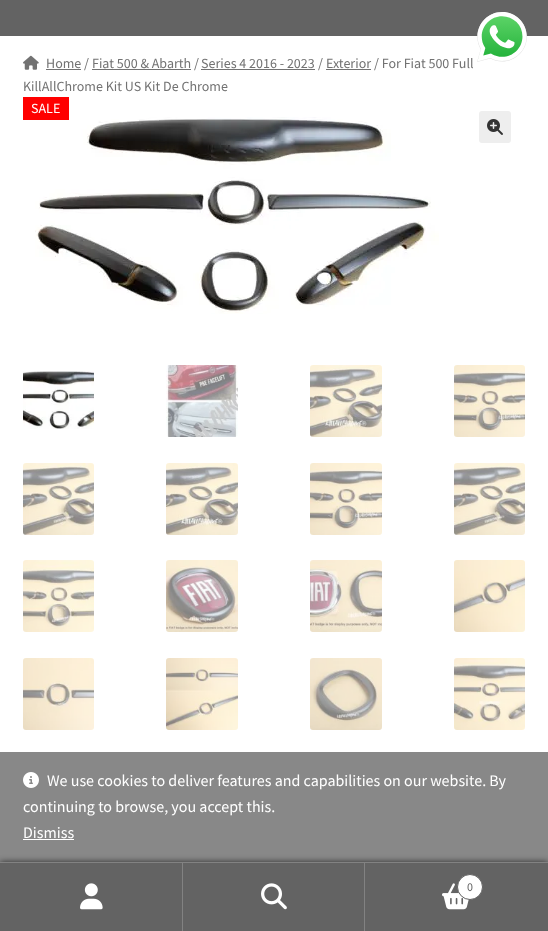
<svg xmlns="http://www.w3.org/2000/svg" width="548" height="931">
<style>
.a{font:14px Source Sans Pro;fill:#727272}
.b{font:14px Source Sans Pro;fill:#fff}
.c{font:12px Source Sans Pro;fill:#636363}
.d{font:16px Source Sans Pro;fill:#fff}
</style>
<rect width="100%" height="100%" fill="#fff"/>
<path fill="#636363" d="M0 0h548v36H0z"/>
<image href="1.png" x="477" y="12" width="50" height="50"/>
<image href="2.png" x="23" y="55" width="16" height="15"/>
<path fill="#727272" d="M46 69h35v1H46z"/>
<path fill="#727272" d="M92 69h99v1H92z"/>
<path fill="#727272" d="M201 69h114v1H201z"/>
<path fill="#727272" d="M326 69h45v1H326z"/>
<image href="3.png" x="35" y="117" width="404" height="197"/>
<path fill="#f00" d="M23 97h46v23H23z"/>
<rect fill="#eee" x="479" y="111" width="32" height="32" rx="3"/>
<image href="4.png" x="487" y="119" width="16" height="16"/>
<image href="5.png" x="23" y="371" width="71" height="58"/>
<image href="6.png" x="166" y="365" width="72" height="72"/>
<image href="7.png" x="310" y="365" width="72" height="72"/>
<image href="8.png" x="454" y="365" width="71" height="72"/>
<image href="9.png" x="23" y="463" width="71" height="72"/>
<image href="10.png" x="166" y="463" width="72" height="72"/>
<image href="11.png" x="310" y="463" width="72" height="72"/>
<image href="12.png" x="454" y="463" width="71" height="72"/>
<image href="13.png" x="23" y="560" width="71" height="72"/>
<image href="14.png" x="166" y="560" width="72" height="72"/>
<image href="15.png" x="310" y="560" width="72" height="72"/>
<image href="16.png" x="454" y="560" width="71" height="72"/>
<image href="17.png" x="23" y="658" width="71" height="72"/>
<image href="18.png" x="166" y="658" width="72" height="72"/>
<image href="19.png" x="310" y="658" width="72" height="72"/>
<image href="20.png" x="454" y="658" width="71" height="72"/>
<path fill="#888" d="M0 752h548v110H0z"/>
<path fill="#000000b3" filter="blur(3px)" d="M0 862h548v69H0z"/>
<path fill="#828282" d="M0 862h548v1H0z"/>
<path fill="#636363" d="M0 863h182v68H0z"/>
<path fill="#828282" d="M182 863h1v68H182z"/>
<image href="21.png" x="80" y="883" width="23" height="27"/>
<path fill="#636363" d="M183 863h181v68H183z"/>
<path fill="#828282" d="M364 863h1v68H364z"/>
<image href="22.png" x="261" y="883" width="26" height="27"/>
<path fill="#636363" d="M365 863h183v68H365z"/>
<image href="23.png" x="442" y="883" width="27" height="27"/>
<circle fill="#fff" stroke="#636363" cx="470" cy="887" r="12.5"/>
<image href="24.png" x="23" y="772" width="16" height="16"/>
<path fill="#fff" d="M23 839h51v1H23z"/>
<text class="a" x="46" y="68">Home</text>
<text class="a" x="84" y="68">/</text>
<text class="a" x="92" y="68">Fiat 500 &amp; Abarth</text>
<text class="a" x="194" y="68">/</text>
<text class="a" x="201" y="68">Series 4 2016 - 2023</text>
<text class="a" x="318" y="68">/</text>
<text class="a" x="326" y="68">Exterior</text>
<text class="a" x="374" y="68">/ For Fiat 500 Full</text>
<text class="a" x="23" y="91">KillAllChrome Kit US Kit De Chrome</text>
<text class="b" x="31" y="113">SALE</text>
<text class="c" x="467" y="891">0</text>
<text class="d" x="47" y="786">We use cookies to deliver features and capabilities on our website. By</text>
<text class="d" x="23" y="812">continuing to browse, you accept this.</text>
<text class="d" x="23" y="838">Dismiss</text>
</svg>
